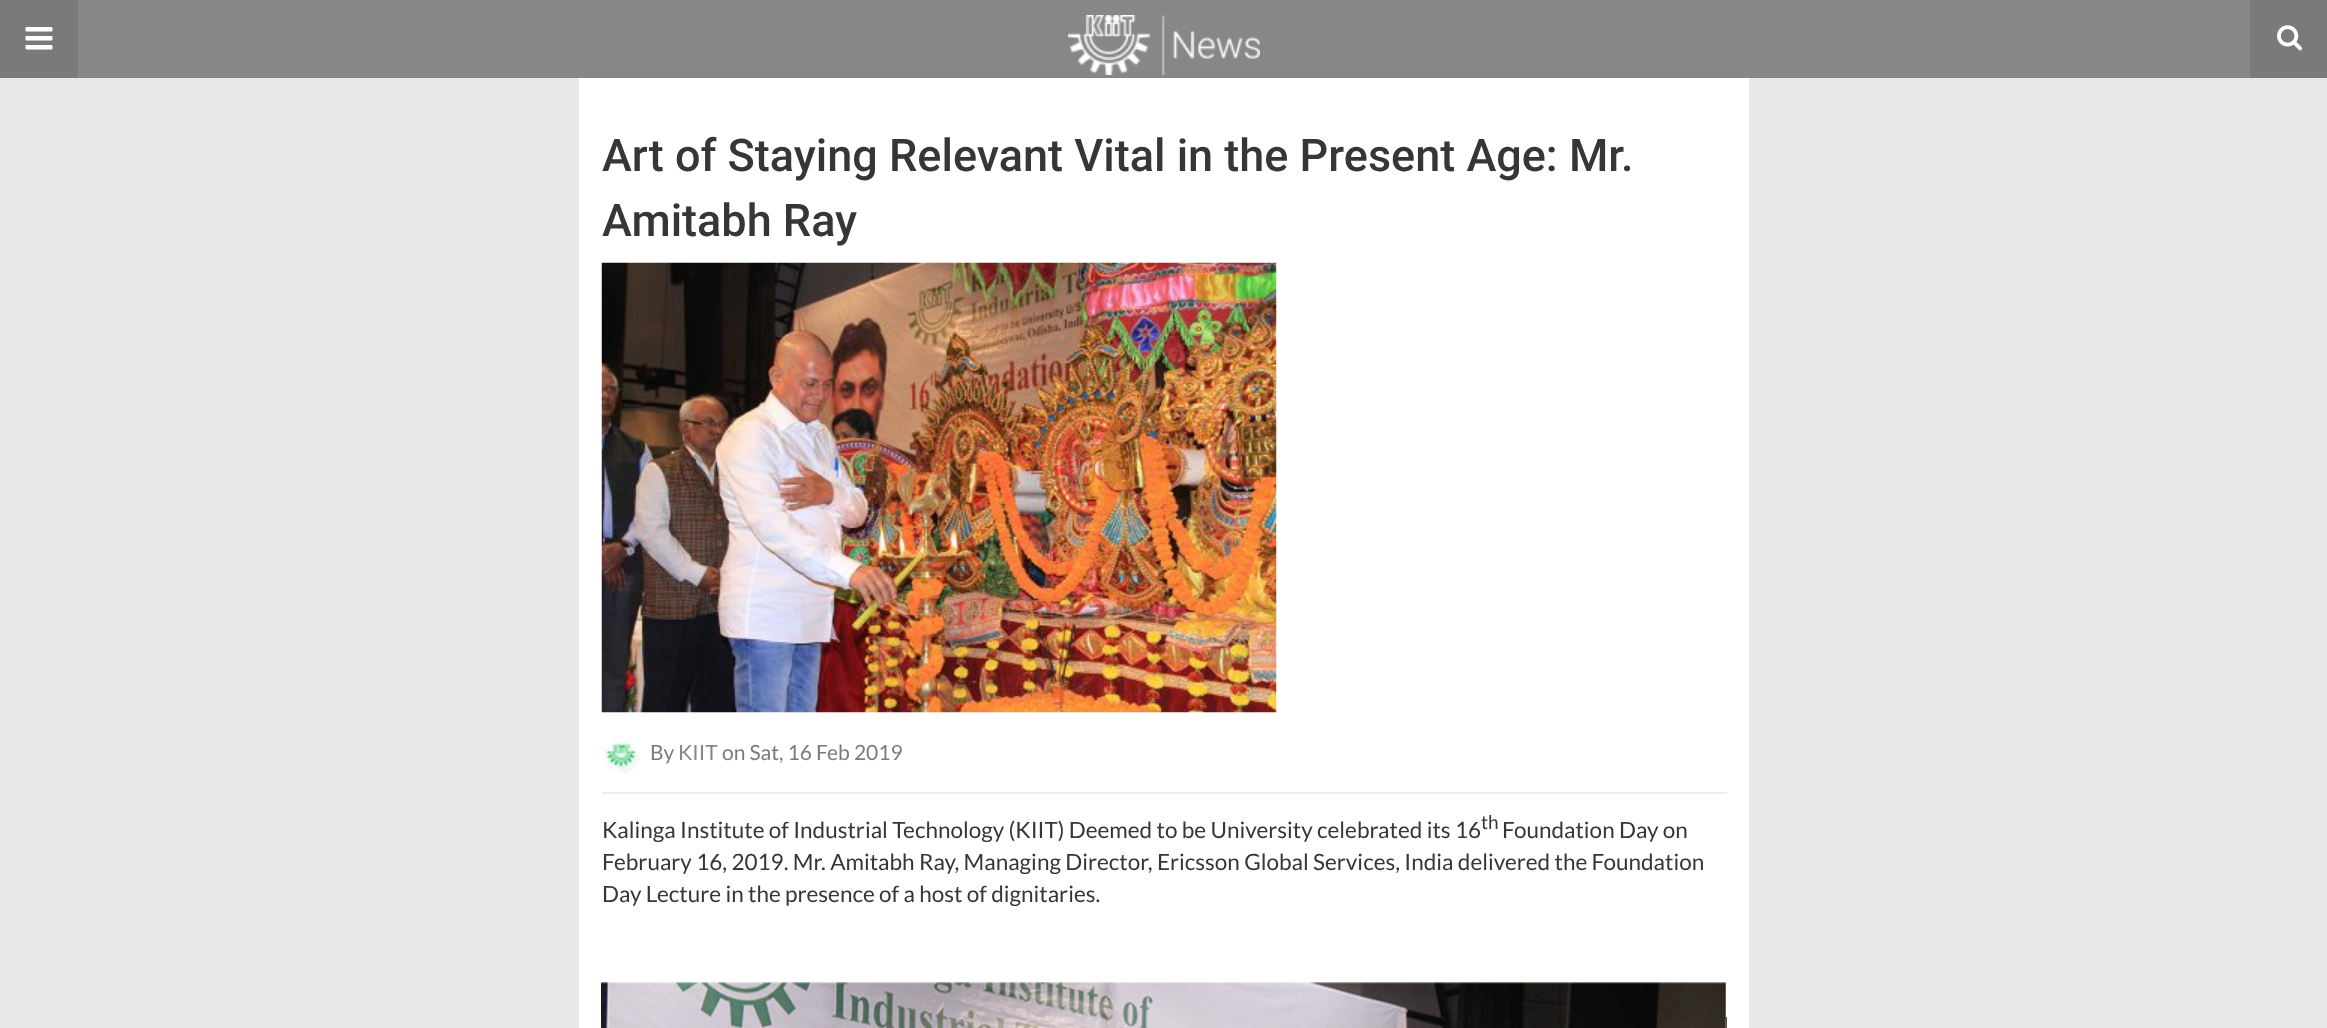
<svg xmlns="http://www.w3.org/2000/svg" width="2327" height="1028">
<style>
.a{font:500 45px Roboto;fill:#363636}
.b{font:21px Lato;fill:#7b7b7b}
.c{font:21px Lato;fill:#878787}
.d{font:22.5px Lato;fill:#363636}
.e{font:19px Lato;fill:#363636}
</style>
<rect width="100%" height="100%" fill="#e8e8e8"/>
<path fill="#fff" d="M579 78h1170v950H579z"/>
<path fill="#878787" d="M78 0h2172v78H78z"/>
<path fill="#7a7a7a" d="M0 0h78v78H0z"/>
<image href="1.png" x="25" y="27" width="28" height="23"/>
<image href="2.png" x="1068" y="15" width="192" height="60"/>
<path fill="#7a7a7a" d="M2250 0h77v78H2250z"/>
<image href="3.png" x="2277" y="25" width="25" height="26"/>
<image href="4.png" x="601" y="262" width="676" height="451"/>
<path fill="#eee" d="M602 792h1125v2H602z"/>
<image href="5.png" x="602" y="735" width="38" height="39"/>
<image href="6.png" x="601" y="982" width="1125" height="46"/>
<image href="7.png" x="1726" y="1017" width="1" height="11"/>
<text class="a" x="602" y="171">Art of Staying Relevant Vital in the Present Age: Mr.</text>
<text class="a" x="602" y="236">Amitabh Ray</text>
<text class="b" x="650" y="760">By</text>
<text class="c" x="678" y="760">KIIT</text>
<text class="b" x="722" y="760">on Sat, 16 Feb 2019</text>
<text class="d" x="602" y="838">Kalinga Institute of Industrial Technology (KIIT) Deemed to be University celebrated its 16</text>
<text class="e" x="1481" y="829">th</text>
<text class="d" x="1502" y="838">Foundation Day on</text>
<text class="d" x="602" y="870">February 16, 2019. Mr. Amitabh Ray, Managing Director, Ericsson Global Services, India delivered the Foundation</text>
<text class="d" x="602" y="902">Day Lecture in the presence of a host of dignitaries.</text>
</svg>
